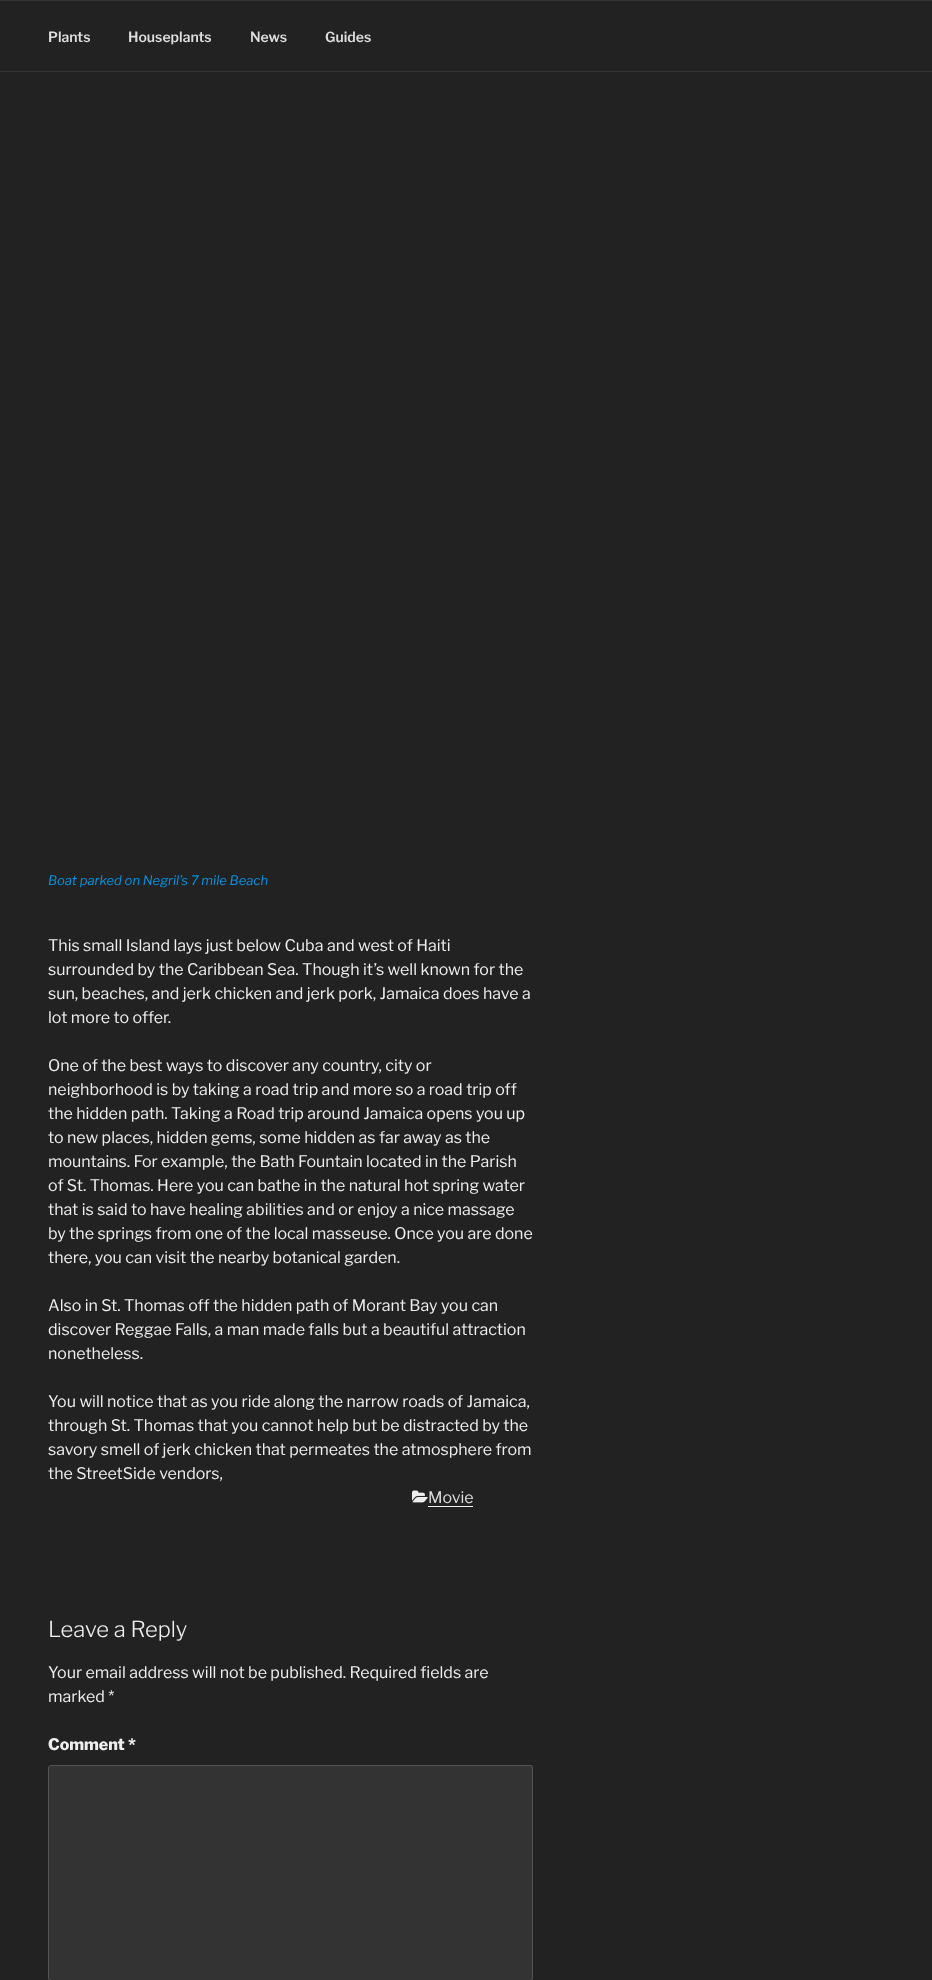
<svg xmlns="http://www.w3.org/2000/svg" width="932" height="1980">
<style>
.a{font:100 14px 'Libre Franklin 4';fill:#ddd}
.b{font:italic 100 13px Libre Franklin;fill:#0693e3}
.c{font:100 16px Libre Franklin;fill:#eee}
.d{font:100 16px Libre Franklin;fill:#ddd}
.e{font:100 22px 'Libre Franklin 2';fill:#eee}
.f{font:100 16px 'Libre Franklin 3';fill:#eee}
</style>
<rect width="100%" height="100%" fill="#222"/>
<path fill="#333" d="M0 0h932v1H0z"/>
<path fill="#333" d="M0 71h932v1H0z"/>
<image href="1.png" x="412" y="1490" width="16" height="13"/>
<path fill="#f0f0f0" d="M428 1506h45v1H428z"/>
<rect fill="#333" stroke="#555" x="48.5" y="1765.5" width="484" height="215" rx="2.5"/>
<text class="a" x="48" y="42">Plants</text>
<text class="a" x="128" y="42">Houseplants</text>
<text class="a" x="250" y="42">News</text>
<text class="a" x="325" y="42">Guides</text>
<text class="b" x="48" y="885">Boat parked on Negril’s 7 mile Beach</text>
<text class="c" x="48" y="951">This small Island lays just below Cuba and west of Haiti</text>
<text class="c" x="48" y="975">surrounded by the Caribbean Sea. Though it’s well known for the</text>
<text class="c" x="48" y="999">sun, beaches, and jerk chicken and jerk pork, Jamaica does have a</text>
<text class="c" x="48" y="1023">lot more to offer.</text>
<text class="c" x="48" y="1071">One of the best ways to discover any country, city or</text>
<text class="c" x="48" y="1095">neighborhood is by taking a road trip and more so a road trip off</text>
<text class="c" x="48" y="1119">the hidden path. Taking a Road trip around Jamaica opens you up</text>
<text class="c" x="48" y="1143">to new places, hidden gems, some hidden as far away as the</text>
<text class="c" x="48" y="1167">mountains. For example, the Bath Fountain located in the Parish</text>
<text class="c" x="48" y="1191">of St. Thomas. Here you can bathe in the natural hot spring water</text>
<text class="c" x="48" y="1215">that is said to have healing abilities and or enjoy a nice massage</text>
<text class="c" x="48" y="1239">by the springs from one of the local masseuse. Once you are done</text>
<text class="c" x="48" y="1263">there, you can visit the nearby botanical garden.</text>
<text class="c" x="48" y="1311">Also in St. Thomas off the hidden path of Morant Bay you can</text>
<text class="c" x="48" y="1335">discover Reggae Falls, a man made falls but a beautiful attraction</text>
<text class="c" x="48" y="1359">nonetheless.</text>
<text class="c" x="48" y="1407">You will notice that as you ride along the narrow roads of Jamaica,</text>
<text class="c" x="48" y="1431">through St. Thomas that you cannot help but be distracted by the</text>
<text class="c" x="48" y="1455">savory smell of jerk chicken that permeates the atmosphere from</text>
<text class="c" x="48" y="1479">the StreetSide vendors,</text>
<text class="d" x="428" y="1503">Movie</text>
<text class="e" x="48" y="1637">Leave a Reply</text>
<text class="c" x="48" y="1678">Your email address will not be published. Required fields are</text>
<text class="c" x="48" y="1702">marked *</text>
<text class="f" x="48" y="1750">Comment *</text>
</svg>
